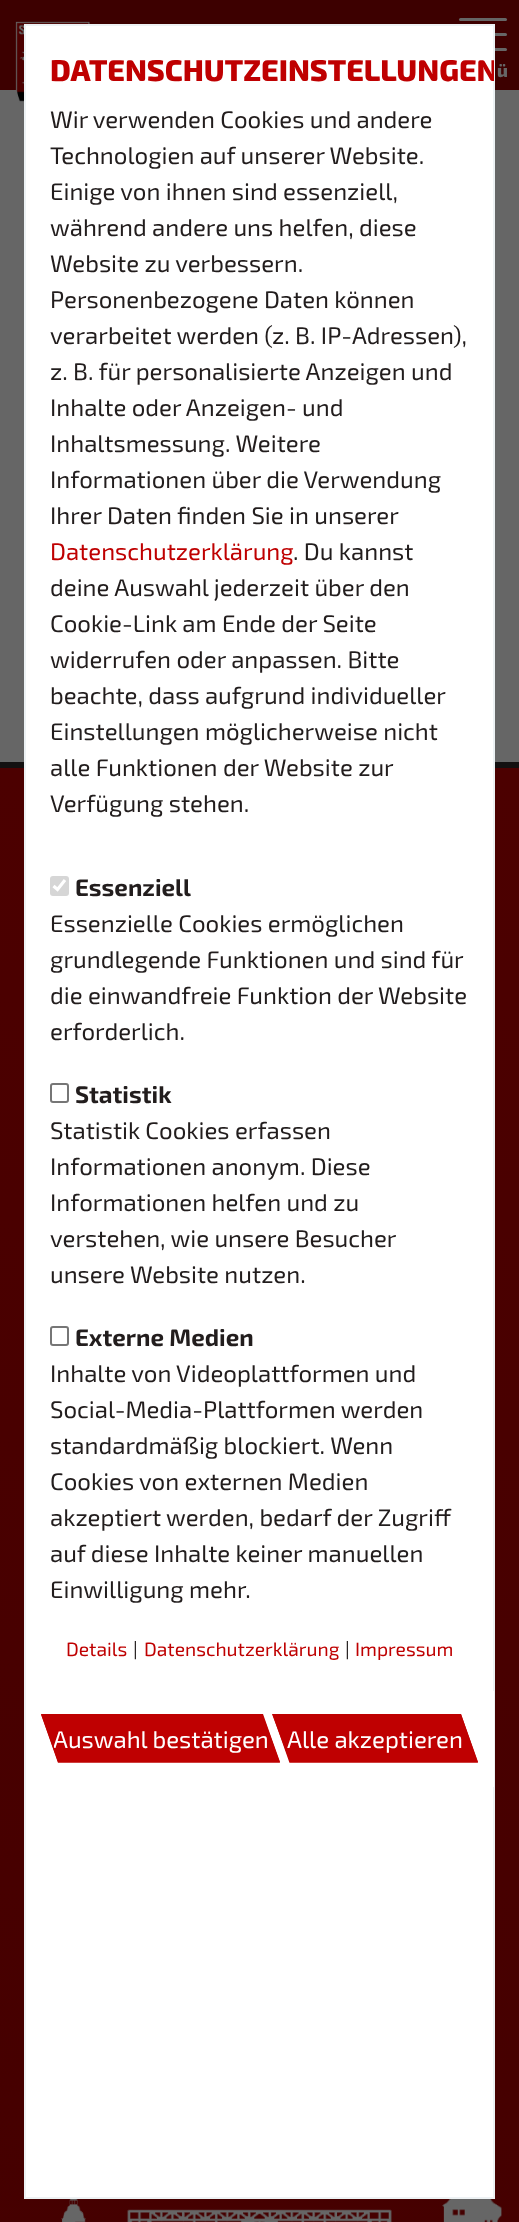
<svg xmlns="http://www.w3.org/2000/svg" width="519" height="2222">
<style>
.a{font:800 30px 'Exo 2';fill:#bf0001}
.b{font:24px 'Exo 2';fill:#221d1d}
.c{font:24px 'Exo 2';fill:#bf0001}
.d{font:bold 24px 'Exo 2';fill:#221d1d}
.e{font:19.25px 'Exo 2';fill:#bf0001}
.f{font:19.25px 'Exo 2';fill:#221d1d}
.g{font:24px 'Exo 2';fill:#fff}
.h{font:800 18px 'Exo 2';fill:#666}
</style>
<defs>
<linearGradient id="g1" gradientUnits="userSpaceOnUse" x1="259" y1="768" x2="260" y2="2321"><stop offset="0" stop-color="#4c0000"/><stop offset="1" stop-color="#450000"/></linearGradient>
<clipPath id="clip1"><path d="M26 26h468v1665H26z"/></clipPath>
<clipPath id="clip2"><path d="M43 1716h218.5l16.5 45h-219z"/></clipPath>
</defs>
<rect width="100%" height="100%" fill="#666"/>
<path fill="#3d0000" d="M0 0h519v90H0z"/>
<image href="1.png" x="15" y="21" width="75" height="90"/>
<rect fill="#666" x="459" y="33" width="48" height="3" rx="1.5"/>
<rect fill="#666" x="459" y="48" width="48" height="3" rx="1.5"/>
<path fill="url(#g1)" d="M0 768h519v1454H0z"/>
<path fill="#131010" d="M0 762h519v6H0z"/>
<path fill="#fff" stroke="#edf2f4" stroke-width="2" d="M25 25h469v2173H25z"/>
<rect fill="#d6d6d6" x="50" y="876" width="19" height="20" rx="3"/>
<path fill="none" stroke="#fff" stroke-width="3.1" d="M53.5 886l4 3.5l7.5-9.5"/>
<rect fill="none" stroke="#767676" stroke-width="2" x="51" y="1084" width="17" height="18" rx="2"/>
<rect fill="none" stroke="#767676" stroke-width="2" x="51" y="1327" width="17" height="18" rx="2"/>
<path fill="#fff" d="M493 1691h1v96H493z"/>
<path fill="#bf0001" d="M41 1714h222l17 48h-222z"/>
<path fill="none" stroke="#bf0001" stroke-width="1.5" d="M42 1715h220l17 47h-220.5z"/>
<path fill="#bf0001" d="M272 1714h189l17 48h-188z"/>
<path fill="none" stroke="#bf0001" stroke-width="1.5" d="M273.5 1715h187l16.5 47h-187z"/>
<rect fill="#666" x="459" y="18" width="48" height="3" rx="1.5"/>
<image href="2.png" x="61" y="2199" width="441" height="23"/>
<g clip-path="url(#clip1)">
<text class="a" x="50" y="81">DATENSCHUTZEINSTELLUNGEN</text>
</g>
<text class="b" x="50" y="128">Wir verwenden Cookies und andere</text>
<text class="b" x="50" y="164">Technologien auf unserer Website.</text>
<text class="b" x="50" y="200">Einige von ihnen sind essenziell,</text>
<text class="b" x="50" y="236">während andere uns helfen, diese</text>
<text class="b" x="50" y="272">Website zu verbessern.</text>
<text class="b" x="50" y="308">Personenbezogene Daten können</text>
<text class="b" x="50" y="344">verarbeitet werden (z. B. IP-Adressen),</text>
<text class="b" x="50" y="380">z. B. für personalisierte Anzeigen und</text>
<text class="b" x="50" y="416">Inhalte oder Anzeigen- und</text>
<text class="b" x="50" y="452">Inhaltsmessung. Weitere</text>
<text class="b" x="50" y="488">Informationen über die Verwendung</text>
<text class="b" x="50" y="524">Ihrer Daten finden Sie in unserer</text>
<text class="c" x="50" y="560">Datenschutzerklärung</text>
<text class="b" x="293" y="560">. Du kannst</text>
<text class="b" x="50" y="596">deine Auswahl jederzeit über den</text>
<text class="b" x="50" y="632">Cookie-Link am Ende der Seite</text>
<text class="b" x="50" y="668">widerrufen oder anpassen. Bitte</text>
<text class="b" x="50" y="704">beachte, dass aufgrund individueller</text>
<text class="b" x="50" y="740">Einstellungen möglicherweise nicht</text>
<text class="b" x="50" y="776">alle Funktionen der Website zur</text>
<text class="b" x="50" y="812">Verfügung stehen.</text>
<text class="d" x="75" y="896">Essenziell</text>
<text class="b" x="50" y="932">Essenzielle Cookies ermöglichen</text>
<text class="b" x="50" y="968">grundlegende Funktionen und sind für</text>
<text class="b" x="50" y="1004">die einwandfreie Funktion der Website</text>
<text class="b" x="50" y="1040">erforderlich.</text>
<text class="d" x="75" y="1103">Statistik</text>
<text class="b" x="50" y="1139">Statistik Cookies erfassen</text>
<text class="b" x="50" y="1175">Informationen anonym. Diese</text>
<text class="b" x="50" y="1211">Informationen helfen und zu</text>
<text class="b" x="50" y="1247">verstehen, wie unsere Besucher</text>
<text class="b" x="50" y="1283">unsere Website nutzen.</text>
<text class="d" x="75" y="1346">Externe Medien</text>
<text class="b" x="50" y="1382">Inhalte von Videoplattformen und</text>
<text class="b" x="50" y="1418">Social-Media-Plattformen werden</text>
<text class="b" x="50" y="1454">standardmäßig blockiert. Wenn</text>
<text class="b" x="50" y="1490">Cookies von externen Medien</text>
<text class="b" x="50" y="1526">akzeptiert werden, bedarf der Zugriff</text>
<text class="b" x="50" y="1562">auf diese Inhalte keiner manuellen</text>
<text class="b" x="50" y="1598">Einwilligung mehr.</text>
<text class="e" x="66" y="1656">Details</text>
<text class="f" x="133" y="1656">|</text>
<text class="e" x="144" y="1656">Datenschutzerklärung</text>
<text class="f" x="345" y="1656">|</text>
<text class="e" x="355" y="1656">Impressum</text>
<g clip-path="url(#clip2)">
<text class="g" x="53" y="1748">Auswahl bestätigen</text>
</g>
<text class="g" x="287" y="1748">Alle akzeptieren</text>
<text class="h" x="497" y="77">ü</text>
</svg>
